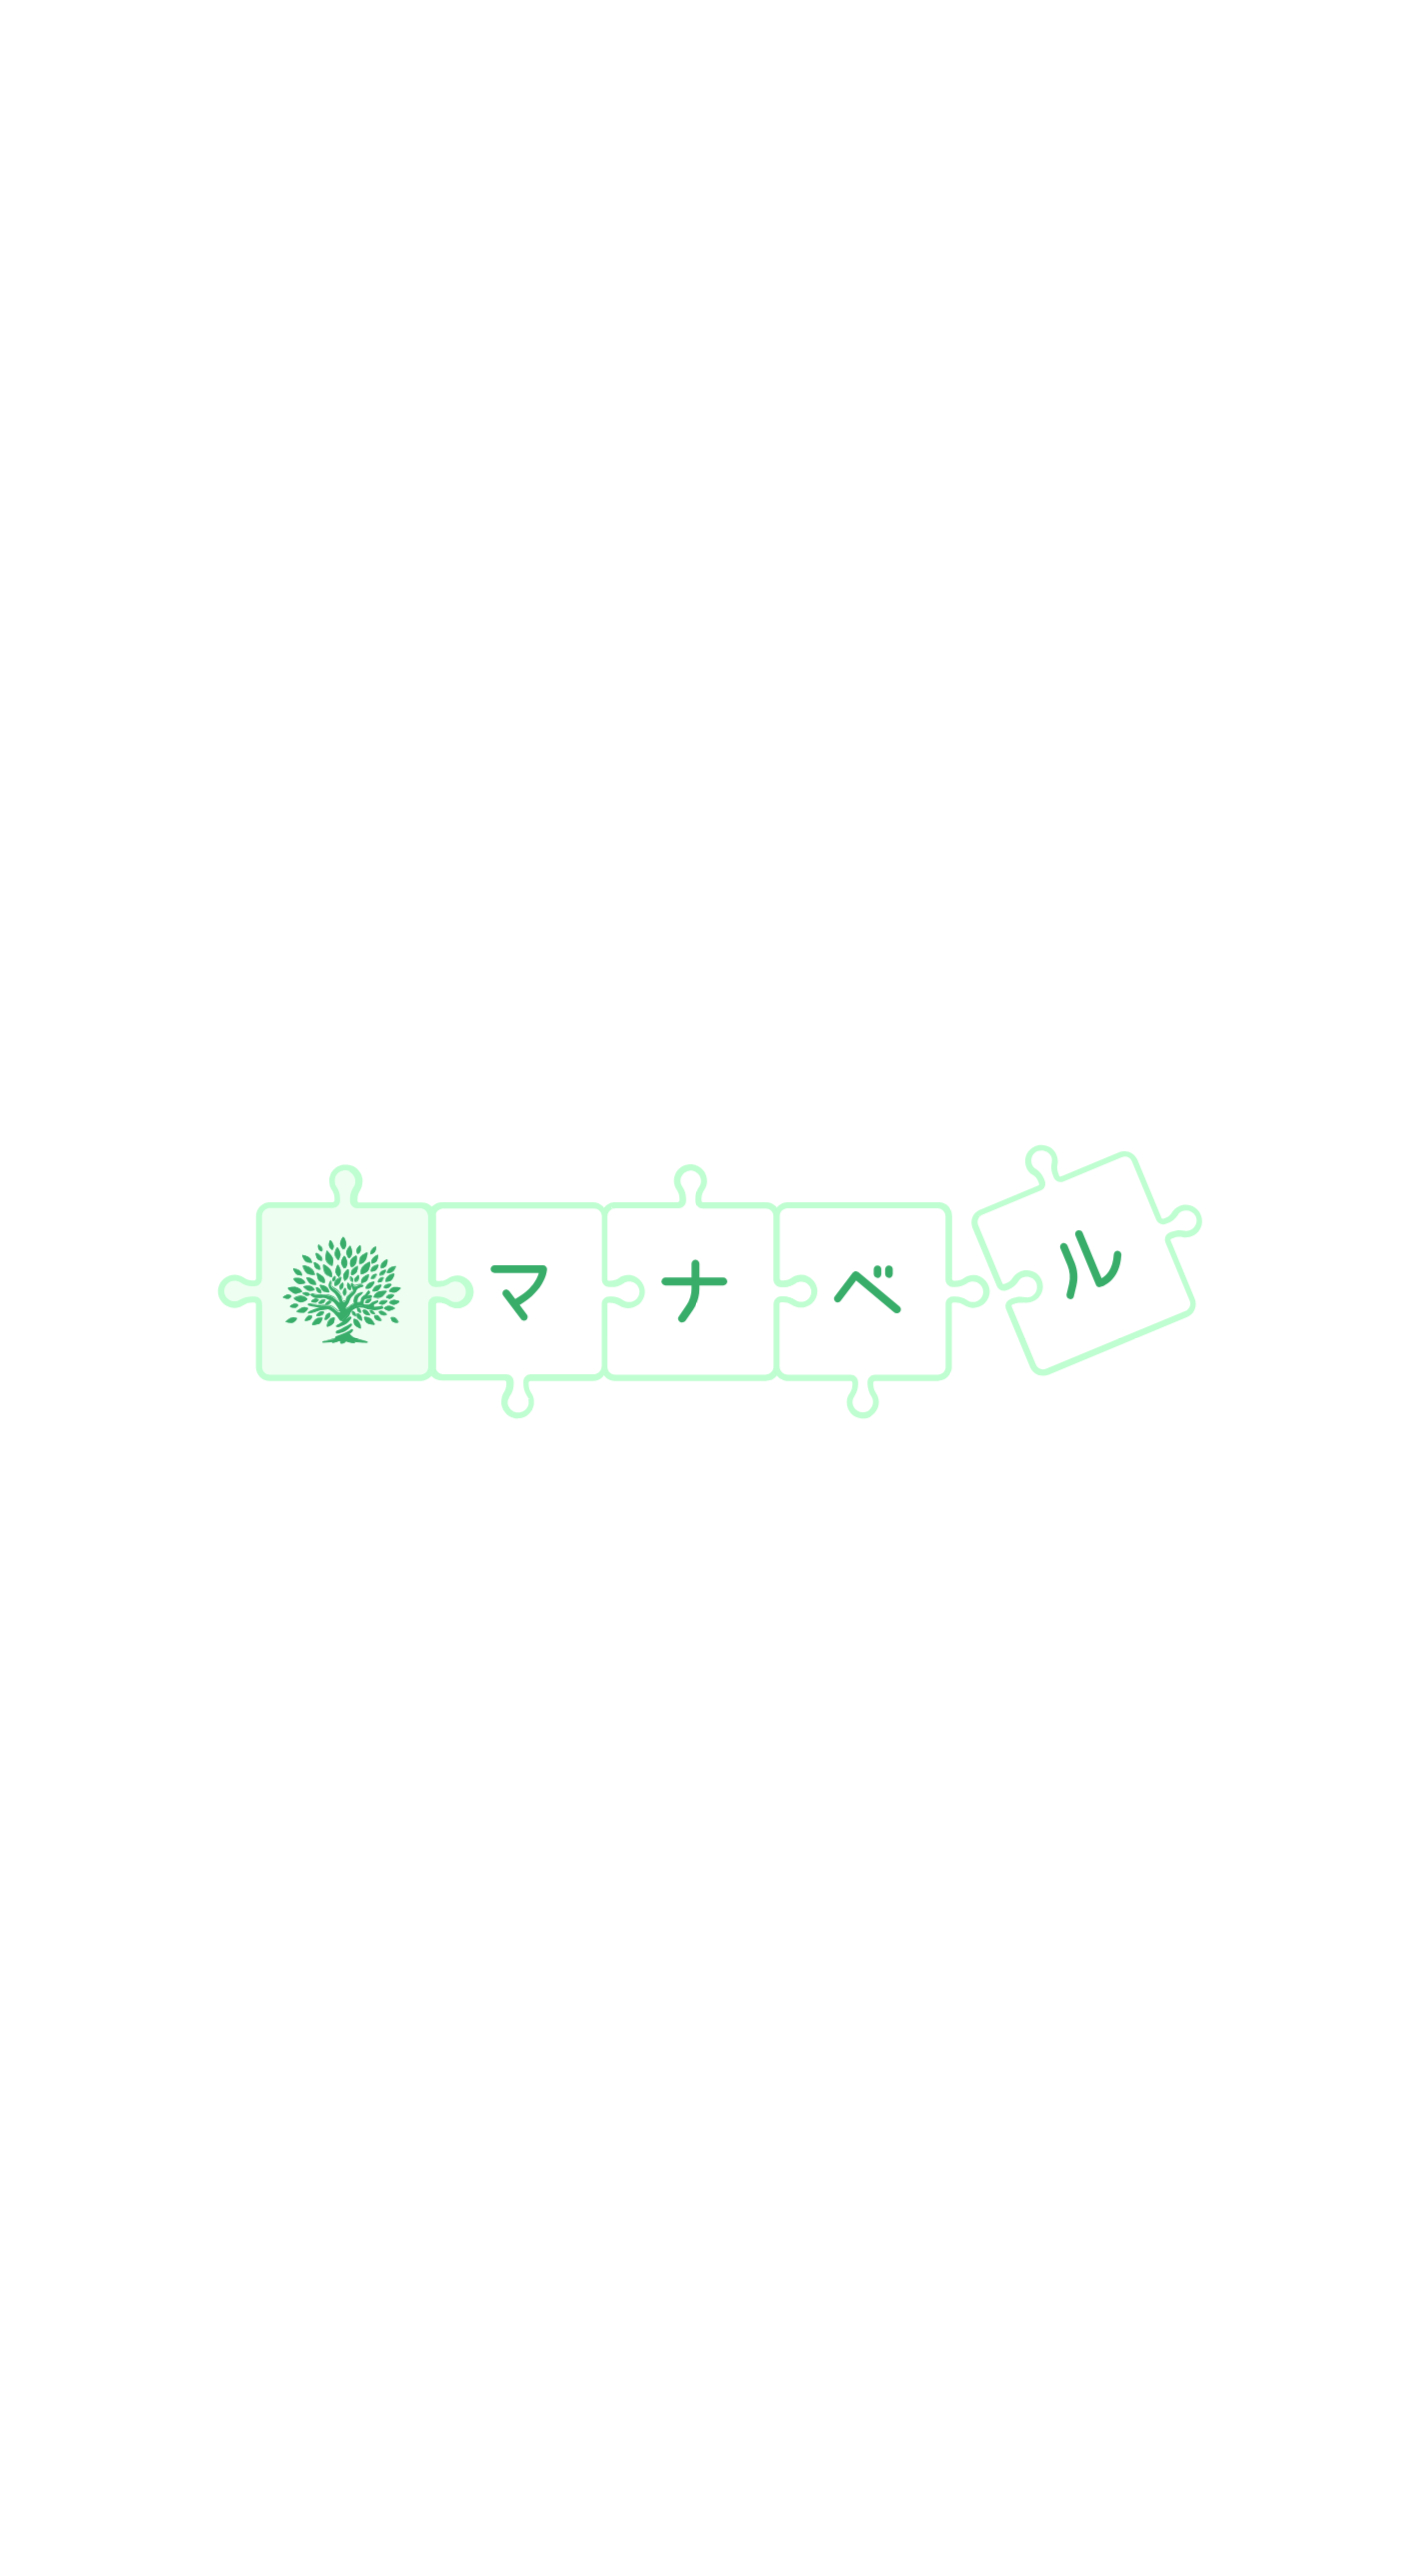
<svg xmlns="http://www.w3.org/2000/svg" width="1425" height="2563">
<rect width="100%" height="100%" fill="#fff"/>
<image href="1.png" x="217" y="1144" width="986" height="276"/>
</svg>
